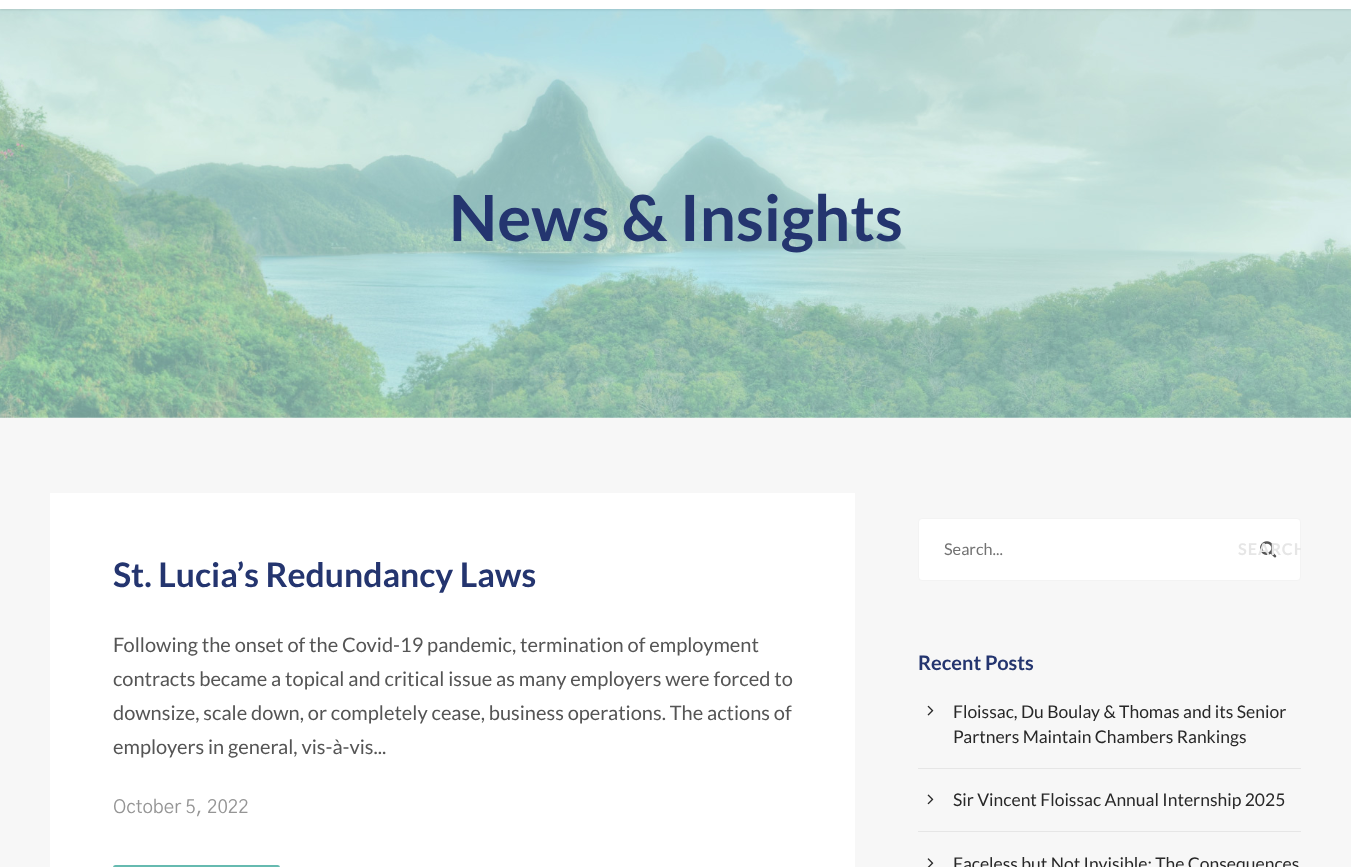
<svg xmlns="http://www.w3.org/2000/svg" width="1351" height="867">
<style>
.a{font:bold 63.75px Lato;fill:#24356f}
.b{font:bold 33.75px Lato;fill:#24356f}
.c{font:20px Lato;fill:#555}
.d{font:18.75px 'Gothic A1';fill:#959595}
.e{font:16.25px Lato;fill:#727272}
.f{font:bold 16.25px Lato;letter-spacing:1px;fill:#e6e6e6}
.g{font:bold 20px Lato;fill:#24356f}
.h{font:17.5px Lato;fill:#282828}
</style>
<defs>
<clipPath id="clip1"><path d="M1238 518h63v63H1238z"/></clipPath>
</defs>
<rect width="100%" height="100%" fill="#fff"/>
<image href="1.png" x="0" y="9" width="1351" height="409"/>
<path fill="#0000001a" filter="blur(1px)" d="M0 -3h1351v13H0z"/>
<path fill="#fff" d="M0 0h1351v9H0z"/>
<path fill="#f7f7f7" d="M0 418h1351v449H0z"/>
<path fill="#fff" d="M50 493h805v374H50z"/>
<rect fill="#66bab0" x="113" y="865" width="167" height="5" rx="2.5"/>
<rect fill="#fff" stroke="#f3f3f3" x="918.5" y="518.5" width="382" height="62" rx="3.5"/>
<image href="2.png" x="1260" y="541" width="17" height="17"/>
<path fill="#e6e6e6" d="M918 768h383v1H918z"/>
<image href="3.png" x="927" y="705" width="7" height="11"/>
<path fill="#e6e6e6" d="M918 831h383v1H918z"/>
<image href="4.png" x="927" y="794" width="7" height="11"/>
<image href="5.png" x="927" y="858" width="7" height="9"/>
<text class="a" x="449" y="241">News &amp; Insights</text>
<text class="b" x="113" y="587">St. Lucia’s Redundancy Laws</text>
<text class="c" x="113" y="652">Following the onset of the Covid-19 pandemic, termination of employment</text>
<text class="c" x="113" y="686">contracts became a topical and critical issue as many employers were forced to</text>
<text class="c" x="113" y="720">downsize, scale down, or completely cease, business operations. The actions of</text>
<text class="c" x="113" y="754">employers in general, vis-à-vis...</text>
<text class="d" x="113" y="813">October 5, 2022</text>
<text class="e" x="944" y="555">Search...</text>
<g clip-path="url(#clip1)">
<text class="f" x="1238" y="555">SEARCH</text>
</g>
<text class="g" x="918" y="670">Recent Posts</text>
<text class="h" x="953" y="718">Floissac, Du Boulay &amp; Thomas and its Senior</text>
<text class="h" x="953" y="743">Partners Maintain Chambers Rankings</text>
<text class="h" x="953" y="806">Sir Vincent Floissac Annual Internship 2025</text>
<text class="h" x="953" y="870">Faceless but Not Invisible: The Consequences</text>
</svg>
